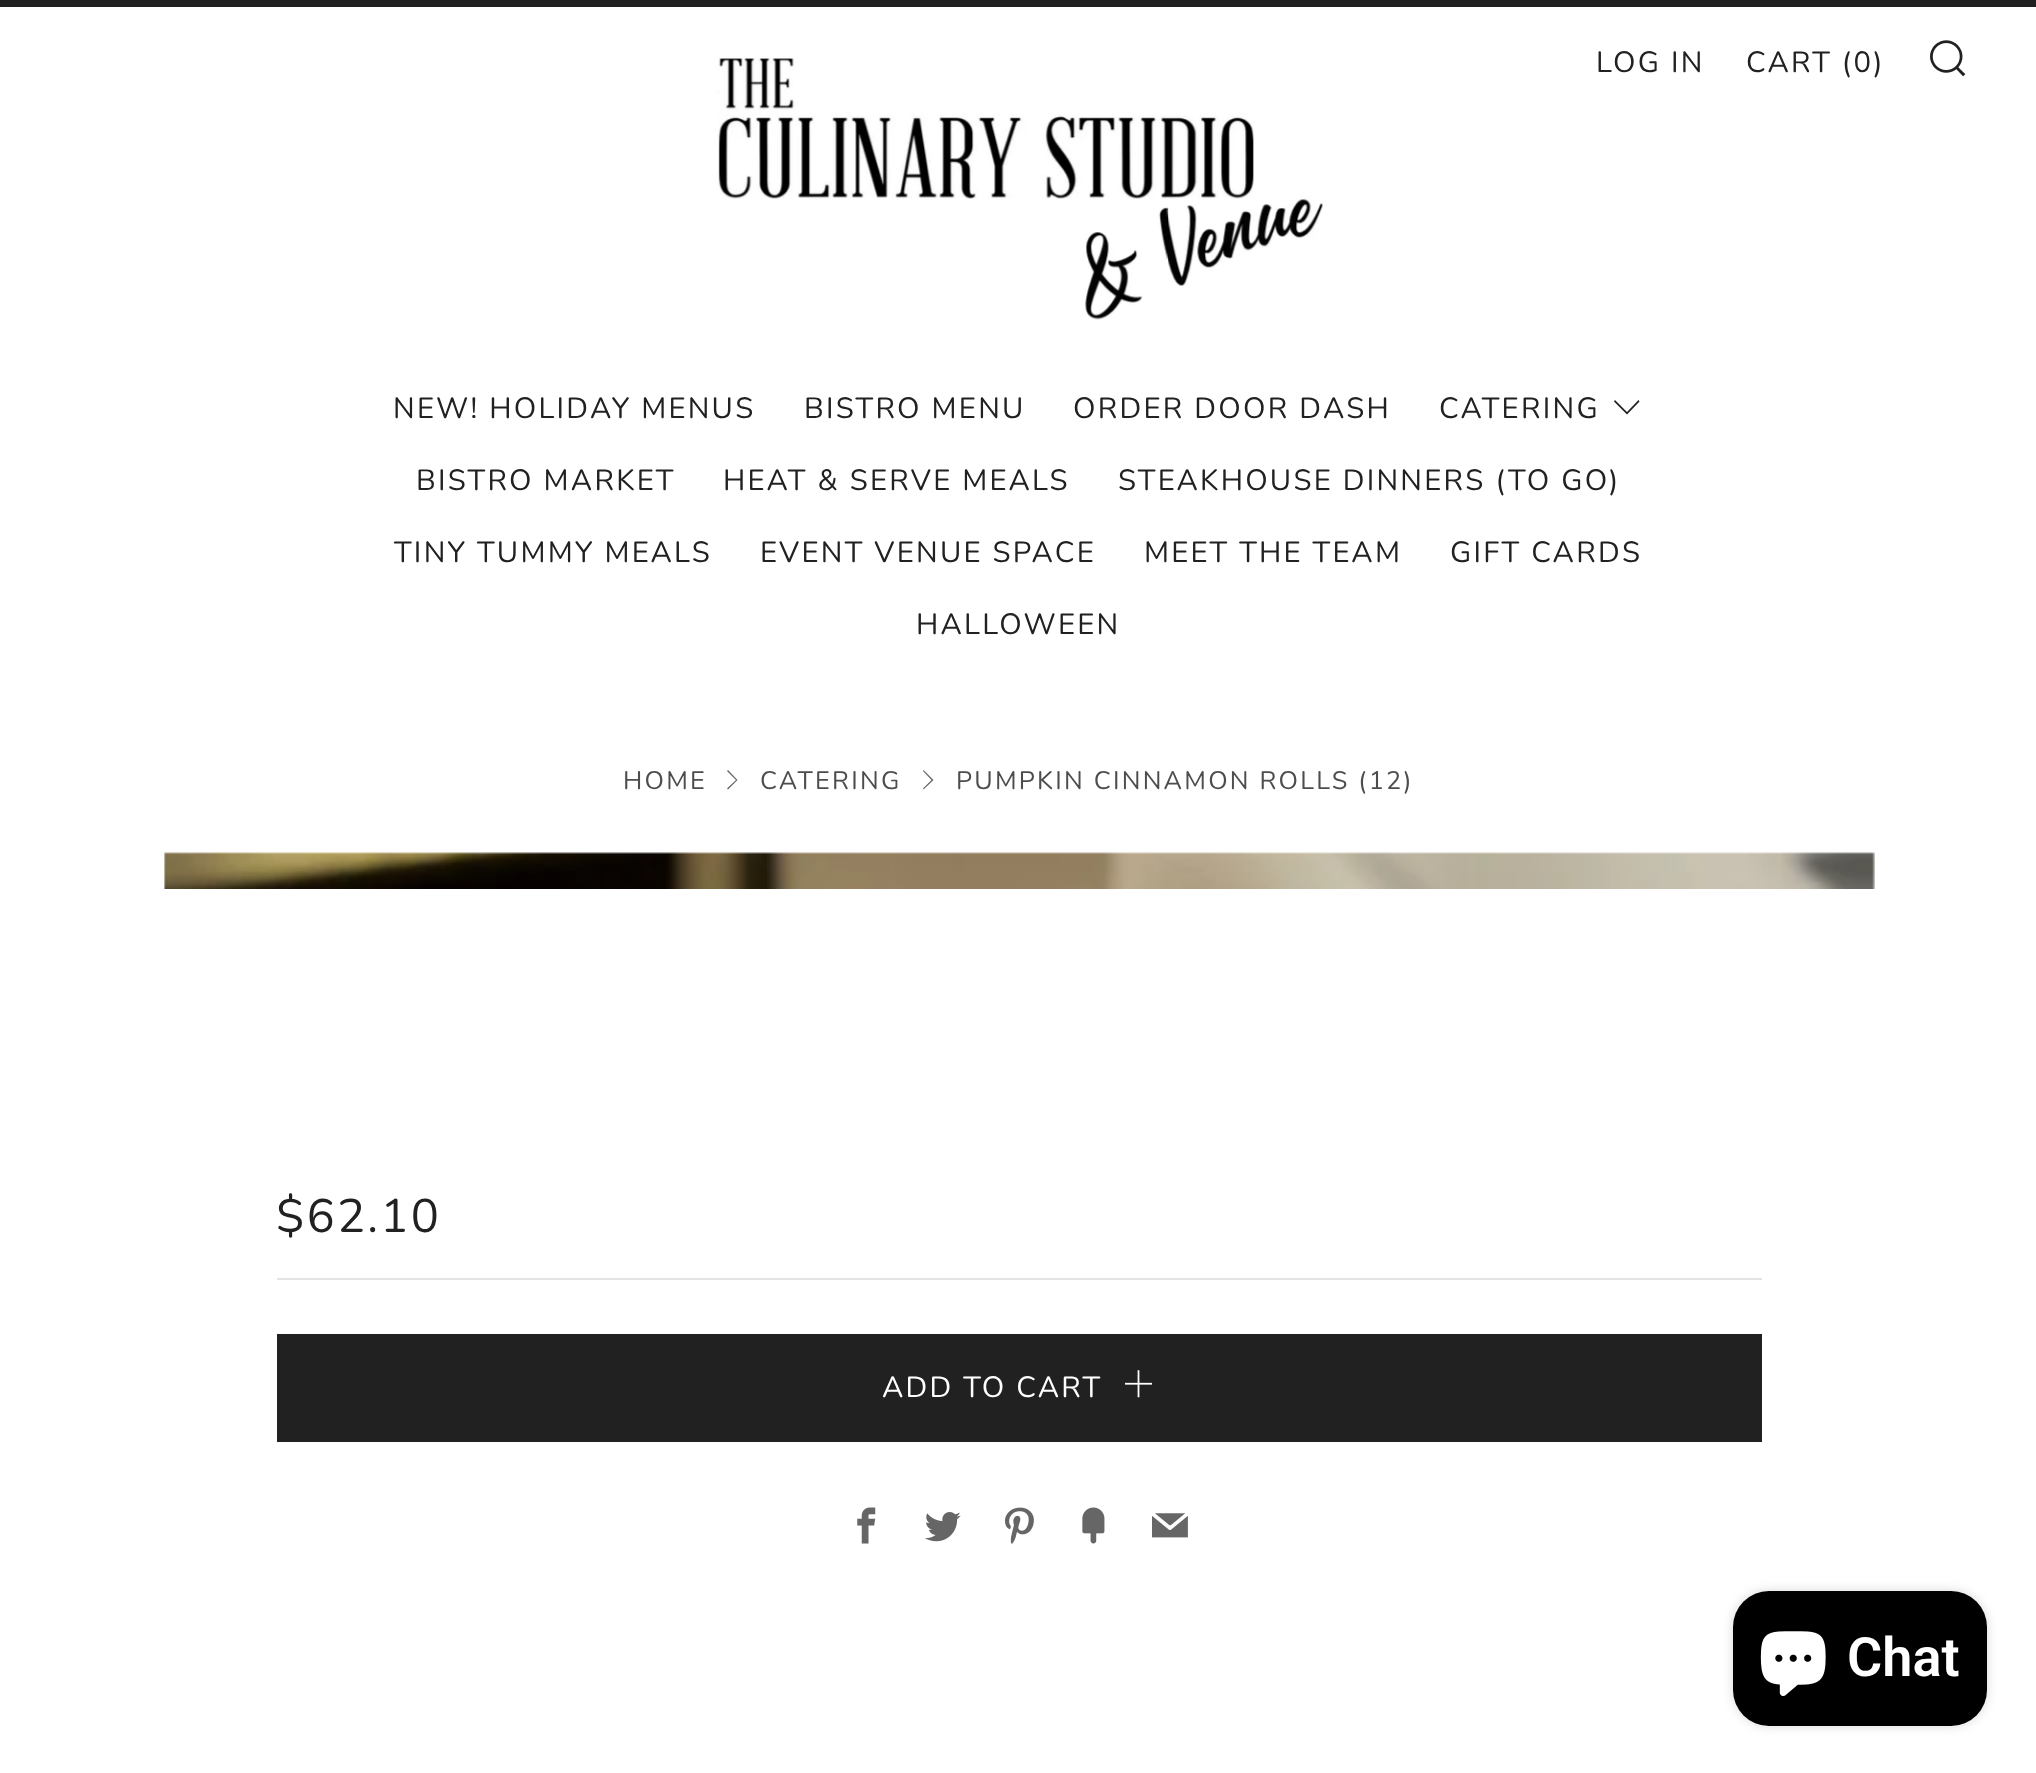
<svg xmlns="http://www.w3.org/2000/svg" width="2036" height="1773">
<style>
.a{font:29.25px Nunito;letter-spacing:2.25px;fill:#212121}
.b{font:25.3px Nunito;letter-spacing:2.25px;fill:#4d4d4d}
.c{font:47px Nunito;letter-spacing:2.25px;fill:#212121}
.d{font:29.25px Nunito;letter-spacing:2.25px;fill:#fff}
.e{font:600 54px Roboto;fill:#fff}
</style>
<rect width="100%" height="100%" fill="#fff"/>
<path fill="#212121" d="M0 0h2036v7H0z"/>
<image href="1.png" x="1930" y="40" width="36" height="37"/>
<path fill="#212121" d="M1615 400l-1 1.5l13 13l12.5-13l-1-1.5l-11.5 12z"/>
<image href="2.png" x="717" y="58" width="606" height="262"/>
<path fill="#646464" d="M727 788.5l1 1l9.5-9.5l-9.5-10l-1 1l9 9z"/>
<path fill="#646464" d="M923 788.5l.5 1l10-9.5l-10-10l-.5 1l8.5 9z"/>
<image href="3.png" x="164" y="852" width="1711" height="37"/>
<path fill="#e4e4e4" d="M277 1278h1485v2H277z"/>
<path fill="#212121" d="M277 1334h1485v108H277z"/>
<image href="4.png" x="1125" y="1370" width="27" height="28"/>
<image href="5.png" x="857" y="1507" width="19" height="37"/>
<image href="6.png" x="925" y="1512" width="36" height="30"/>
<image href="7.png" x="1004" y="1507" width="30" height="37"/>
<image href="8.png" x="1082" y="1507" width="23" height="37"/>
<image href="9.png" x="1152" y="1513" width="36" height="25"/>
<rect fill="#00000026" filter="blur(5.5px)" x="1733" y="1591" width="254" height="135" rx="36"/>
<rect fill="#000" x="1733" y="1591" width="254" height="135" rx="36"/>
<image href="10.png" x="1760" y="1631" width="66" height="65"/>
<text class="a" x="1596" y="72">LOG IN</text>
<text class="a" x="1746" y="72">CART (0)</text>
<text class="a" x="393" y="418">NEW! HOLIDAY MENUS</text>
<text class="a" x="804" y="418">BISTRO MENU</text>
<text class="a" x="1073" y="418">ORDER DOOR DASH</text>
<text class="a" x="1439" y="418">CATERING</text>
<text class="a" x="416" y="490">BISTRO MARKET</text>
<text class="a" x="723" y="490">HEAT &amp; SERVE MEALS</text>
<text class="a" x="1118" y="490">STEAKHOUSE DINNERS (TO GO)</text>
<text class="a" x="394" y="562">TINY TUMMY MEALS</text>
<text class="a" x="760" y="562">EVENT VENUE SPACE</text>
<text class="a" x="1144" y="562">MEET THE TEAM</text>
<text class="a" x="1450" y="562">GIFT CARDS</text>
<text class="a" x="916" y="634">HALLOWEEN</text>
<text class="b" x="623" y="789">HOME</text>
<text class="b" x="760" y="789">CATERING</text>
<text class="b" x="956" y="789">PUMPKIN CINNAMON ROLLS (12)</text>
<text class="c" x="276" y="1232">$62.10</text>
<text class="d" x="882" y="1397">ADD TO CART</text>
<text class="e" x="1847" y="1676">Chat</text>
</svg>
